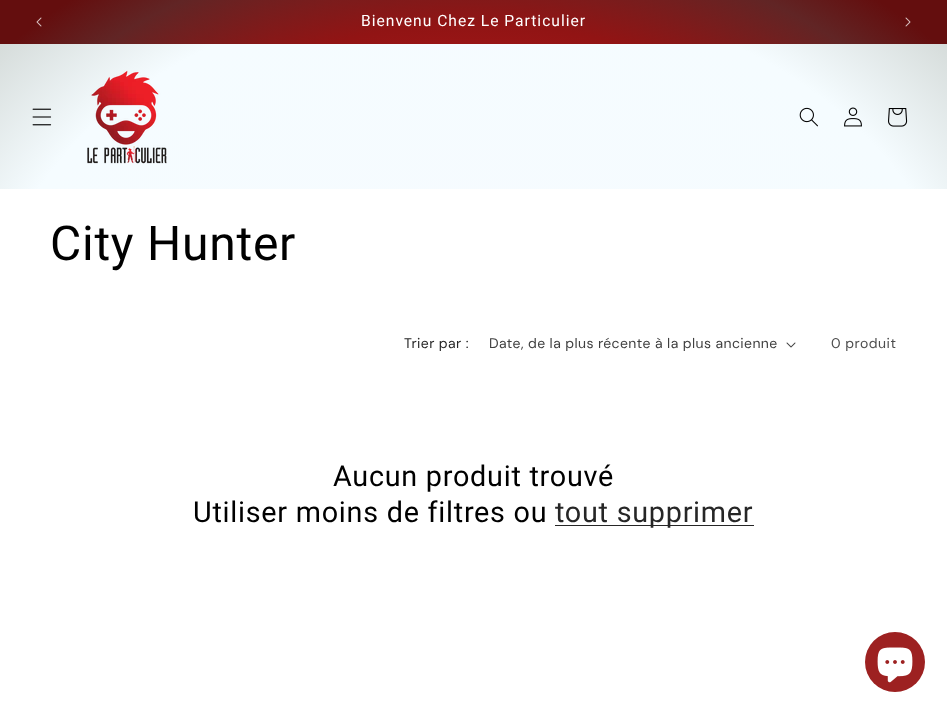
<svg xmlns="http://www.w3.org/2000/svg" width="947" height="713">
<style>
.a{font:15.6px Roboto;letter-spacing:1px;fill:#fff}
.b{font:48px Roboto;letter-spacing:0.75px;fill:#000}
.c{font:14px DM Sans;letter-spacing:0.4px;fill:#262626}
.d{font:14px DM Sans;letter-spacing:0.4px;fill:#404040}
.e{font:14px DM Sans;letter-spacing:0.5px;fill:#4d4d4d}
.f{font:28.75px Roboto;letter-spacing:0.75px;fill:#000}
.g{font:28.75px Roboto;letter-spacing:0.75px;fill:#262626}
</style>
<defs>
<radialGradient id="g1" gradientUnits="userSpaceOnUse" cx="0" cy="0" r="1" gradientTransform="matrix(670 0 0 504 474 357)"><stop offset="0" stop-color="#c91414"/><stop offset="0.31" stop-color="#c91d1d"/><stop offset="0.66" stop-color="#911414"/><stop offset="0.83" stop-color="#612525"/><stop offset="0.93" stop-color="#640e0e"/></radialGradient>
<radialGradient id="g2" gradientUnits="userSpaceOnUse" cx="0" cy="0" r="1" gradientTransform="matrix(670 0 0 504 474 357)"><stop offset="0.16" stop-color="#f6fbff"/><stop offset="0.73" stop-color="#f5fcff"/><stop offset="1" stop-color="#cdd3d0"/></radialGradient>
</defs>
<rect width="100%" height="100%" fill="#fff"/>
<path fill="url(#g1)" d="M0 0h947v44H0z"/>
<image href="1.png" x="36" y="17" width="6" height="10"/>
<image href="2.png" x="905" y="17" width="6" height="10"/>
<path fill="url(#g2)" d="M0 44h947v145H0z"/>
<image href="3.png" x="32" y="108" width="20" height="18"/>
<image href="4.png" x="87" y="70" width="80" height="94"/>
<image href="5.png" x="799" y="107" width="19" height="20"/>
<image href="6.png" x="844" y="107" width="18" height="20"/>
<image href="7.png" x="888" y="108" width="20" height="19"/>
<image href="8.png" x="786" y="342" width="10" height="6"/>
<path fill="#262626" d="M555 525h199v1H555z"/>
<circle fill="#9d2121" cx="895" cy="662" r="30"/>
<image href="9.png" x="877" y="647" width="36" height="36"/>
<text class="a" x="361" y="26">Bienvenu Chez Le Particulier</text>
<text class="b" x="50" y="260">City Hunter</text>
<text class="c" x="404" y="348">Trier par :</text>
<text class="d" x="489" y="348">Date, de la plus récente à la plus ancienne</text>
<text class="e" x="831" y="348">0 produit</text>
<text class="f" x="333" y="486">Aucun produit trouvé</text>
<text class="f" x="193" y="522">Utiliser moins de filtres ou</text>
<text class="g" x="555" y="522">tout supprimer</text>
</svg>
